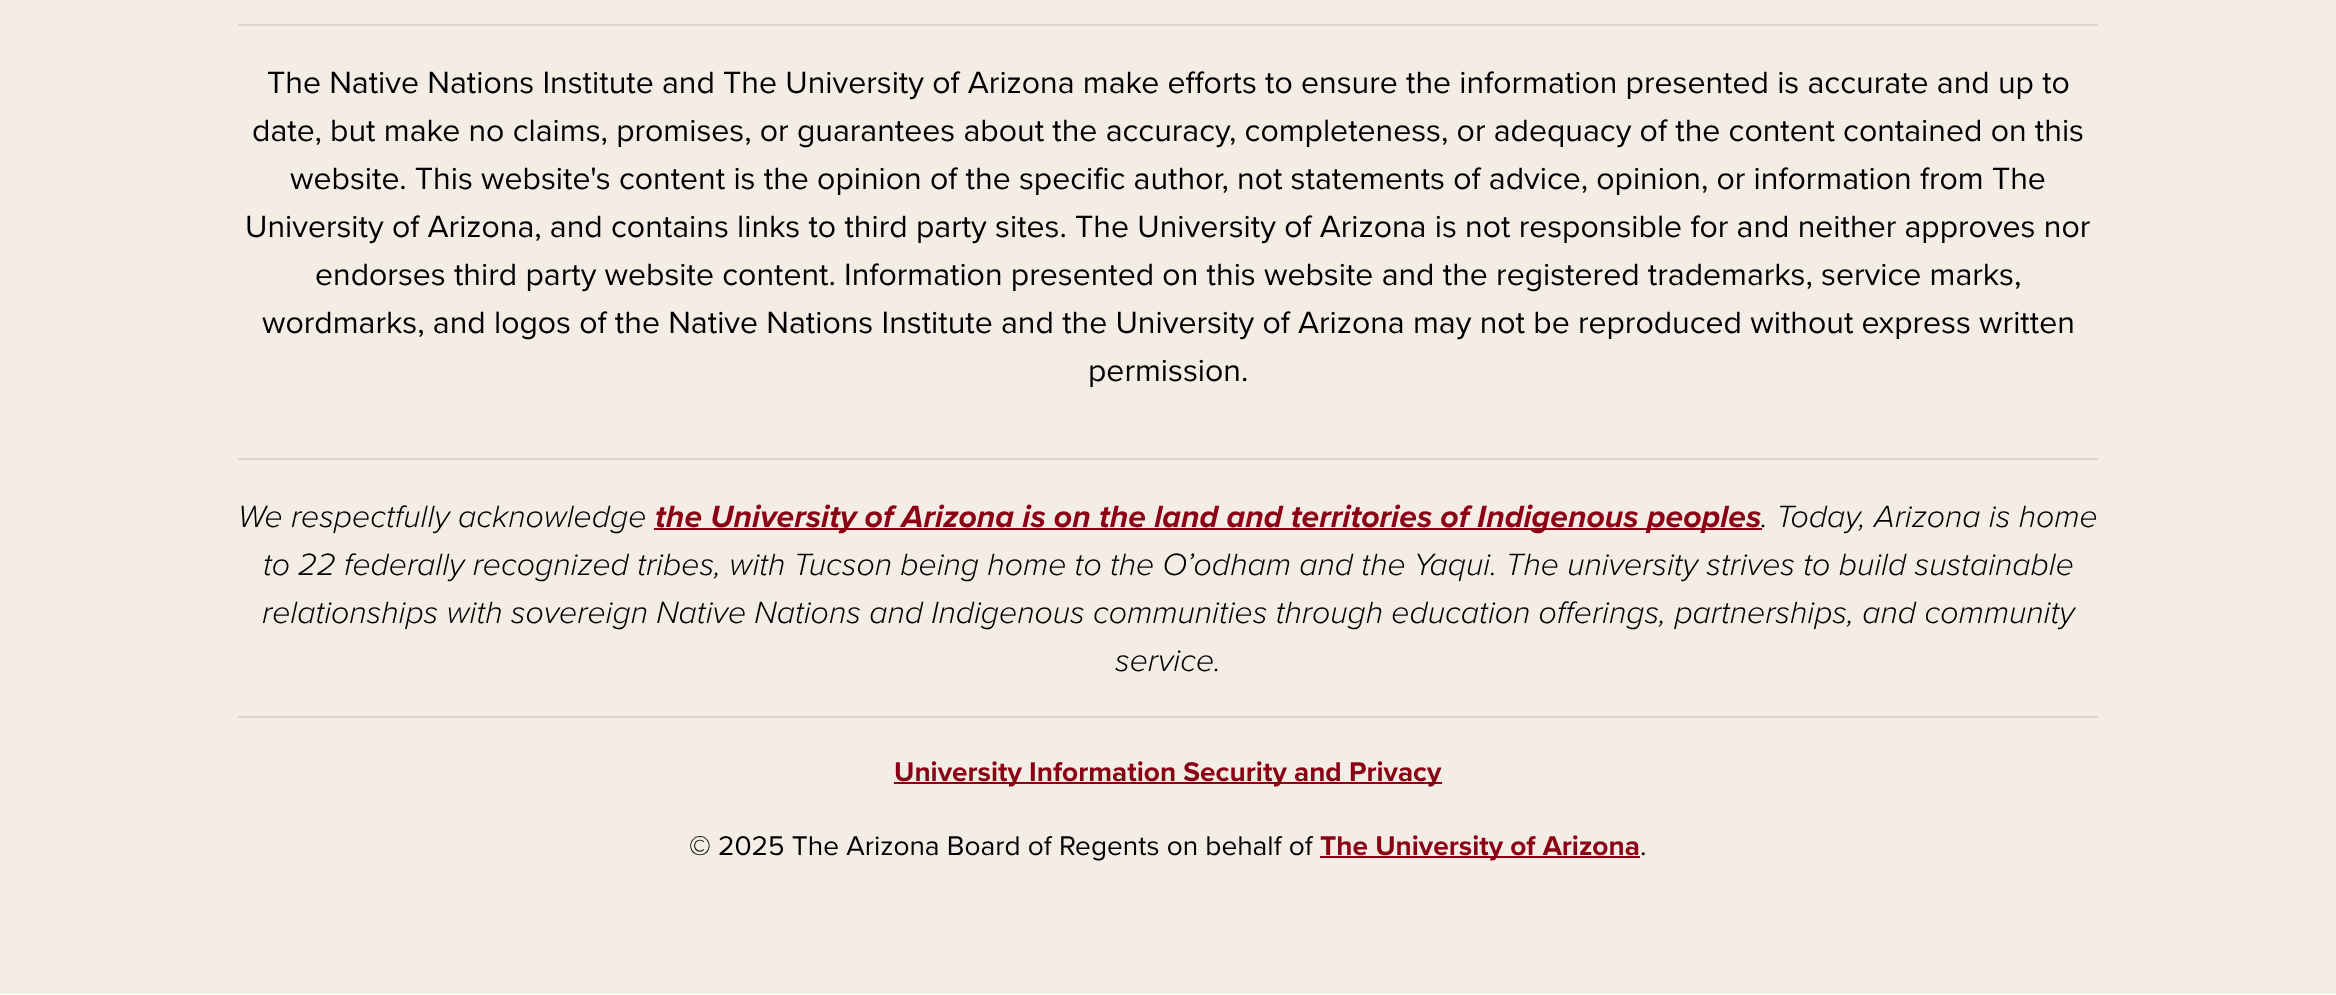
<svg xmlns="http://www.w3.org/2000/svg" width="2336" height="995">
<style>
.a{font:32px Proxima Nova;fill:#000}
.b{font:italic 300 32px Proxima Nova;fill:#000}
.c{font:italic bold 32px Proxima Nova;fill:#8b0015}
.d{font:bold 28px Proxima Nova;fill:#8b0015}
.e{font:28px Proxima Nova;fill:#000}
</style>
<rect width="100%" height="100%" fill="#fff"/>
<path fill="#f4ede5" d="M0 0h2336v994H0z"/>
<path fill="#dcd5ce" d="M238 24h1860v2H238z"/>
<path fill="#dcd5ce" d="M238 458h1860v2H238z"/>
<path fill="#8b0015" d="M654 528h1108v2H654z"/>
<path fill="#dcd5ce" d="M238 716h1860v2H238z"/>
<path fill="#8b0015" d="M894 782h548v2H894z"/>
<path fill="#8b0015" d="M1320 856h320v2H1320z"/>
<text class="a" x="267" y="93">The Native Nations Institute and The University of Arizona make efforts to ensure the information presented is accurate and up to</text>
<text class="a" x="252" y="141">date, but make no claims, promises, or guarantees about the accuracy, completeness, or adequacy of the content contained on this</text>
<text class="a" x="290" y="189">website. This website's content is the opinion of the specific author, not statements of advice, opinion, or information from The</text>
<text class="a" x="245" y="237">University of Arizona, and contains links to third party sites. The University of Arizona is not responsible for and neither approves nor</text>
<text class="a" x="315" y="285">endorses third party website content. Information presented on this website and the registered trademarks, service marks,</text>
<text class="a" x="262" y="333">wordmarks, and logos of the Native Nations Institute and the University of Arizona may not be reproduced without express written</text>
<text class="a" x="1088" y="381">permission.</text>
<text class="b" x="238" y="527">We respectfully acknowledge</text>
<text class="c" x="655" y="527">the University of Arizona is on the land and territories of Indigenous peoples</text>
<text class="b" x="1761" y="527">. Today, Arizona is home</text>
<text class="b" x="263" y="575">to 22 federally recognized tribes, with Tucson being home to the O’odham and the Yaqui. The university strives to build sustainable</text>
<text class="b" x="262" y="623">relationships with sovereign Native Nations and Indigenous communities through education offerings, partnerships, and community</text>
<text class="b" x="1115" y="671">service.</text>
<text class="d" x="894" y="781">University Information Security and Privacy</text>
<text class="e" x="689" y="855">© 2025 The Arizona Board of Regents on behalf of</text>
<text class="d" x="1320" y="855">The University of Arizona</text>
<text class="e" x="1640" y="855">.</text>
</svg>
